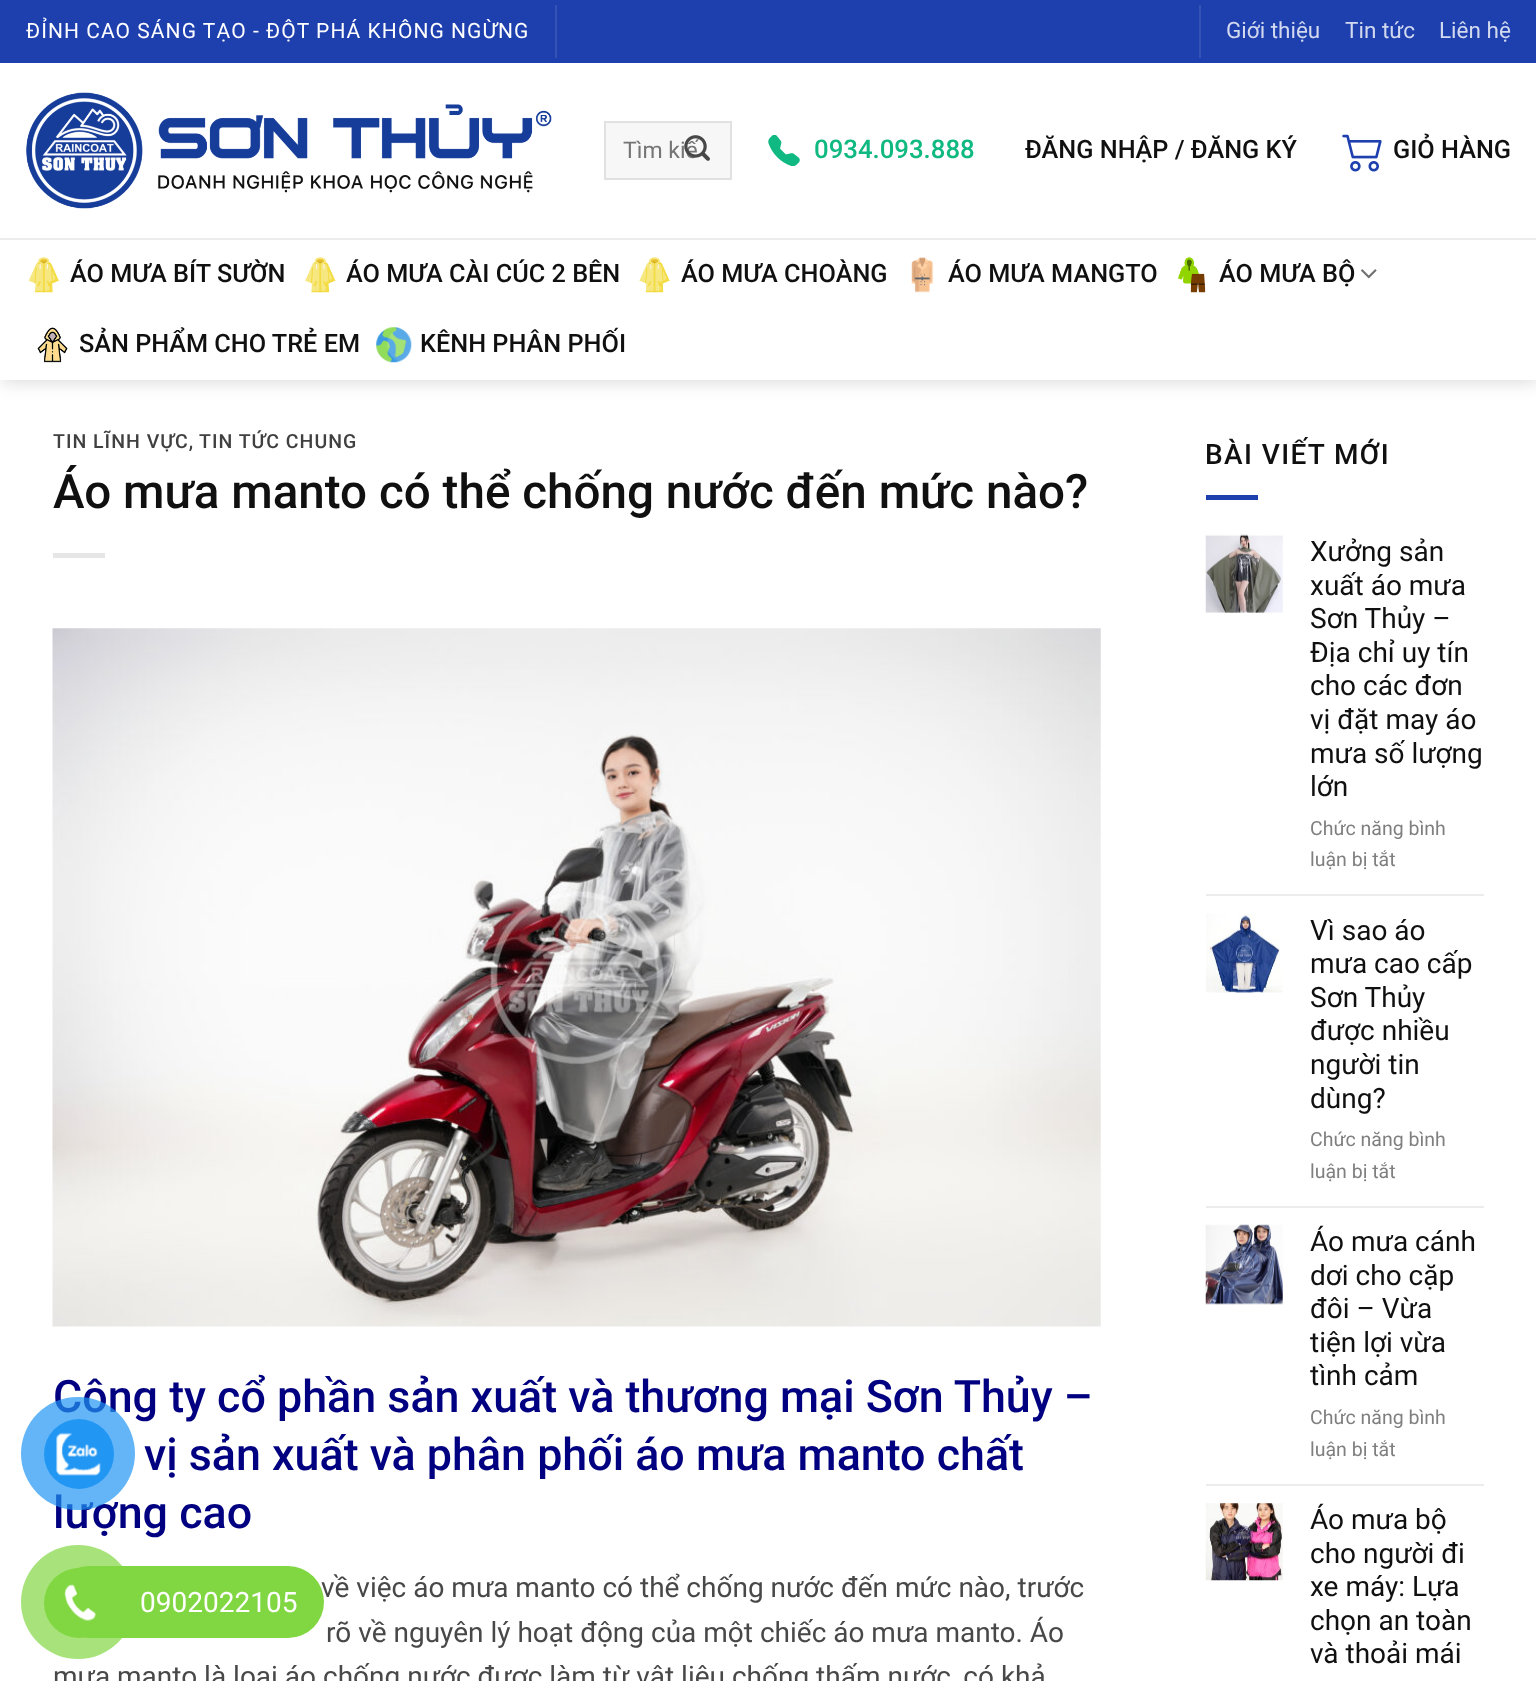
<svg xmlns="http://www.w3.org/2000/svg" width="1536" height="1681">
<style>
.a{font:21px Roboto;letter-spacing:1.05px;fill:#fff}
.b{font:22.5px Roboto;fill:#d2d9ef}
.c{font:23px Roboto;fill:#757575}
.d{font:500 25.75px Roboto;fill:#10b981}
.e{font:500 25.25px Roboto;fill:#101010}
.f{font:500 19.5px Roboto;letter-spacing:1px;fill:#404040}
.g{font:500 47.6px Roboto;fill:#101010}
.h{font:500 44.8px Roboto;fill:#000080}
.i{font:28px Roboto;fill:#484848}
.j{font:500 28px Roboto;letter-spacing:1.4px;fill:#101010}
.k{font:28px Roboto;fill:#101010}
.l{font:19.5px Roboto;fill:#7f7f7f}
.m{font:28px Roboto;fill:#fff}
</style>
<defs>
<clipPath id="clip1"><path d="M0 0h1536v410h-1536zm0 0h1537v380h-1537z" clip-rule="evenodd"/></clipPath>
</defs>
<rect width="100%" height="100%" fill="#fff"/>
<g clip-path="url(#clip1)">
<path fill="#00000026" filter="blur(9px)" d="M2 2h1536v380H2z"/>
</g>
<path fill="#1e40af" d="M0 0h1536v63H0z"/>
<path fill="#3553b7" d="M555 5h2v53H555z"/>
<path fill="#3553b7" d="M1199 5h2v53H1199z"/>
<image href="1.png" x="26" y="92" width="526" height="117"/>
<path fill="#f7f7f7" stroke="#e1e1e1" stroke-width="2" d="M605 122h126v57H605z"/>
<image href="3.png" x="768" y="135" width="32" height="31"/>
<image href="4.png" x="1342" y="134" width="40" height="38"/>
<path fill="#ececec" d="M0 238h1536v2H0z"/>
<image href="5.png" x="28" y="257" width="31" height="36"/>
<image href="6.png" x="305" y="257" width="31" height="36"/>
<image href="7.png" x="639" y="257" width="31" height="36"/>
<image href="8.png" x="911" y="257" width="23" height="36"/>
<image href="9.png" x="1178" y="257" width="28" height="36"/>
<image href="10.png" x="1361" y="269" width="16" height="10"/>
<image href="11.png" x="37" y="327" width="31" height="36"/>
<image href="12.png" x="376" y="327" width="36" height="36"/>
<path fill="#ffffffe6" d="M2 379h1534v1H2z"/>
<path fill="#e6e6e6" d="M53 553h52v5H53z"/>
<image href="13.png" x="52" y="628" width="1049" height="699"/>
<path fill="#1e40af" d="M1206 495h52v5H1206z"/>
<image href="14.png" x="1205" y="534" width="78" height="79"/>
<path fill="#ececec" d="M1206 894h278v2H1206z"/>
<image href="15.png" x="1206" y="913" width="77" height="80"/>
<path fill="#ececec" d="M1206 1206h278v2H1206z"/>
<image href="16.png" x="1205" y="1224" width="78" height="81"/>
<path fill="#ececec" d="M1206 1484h278v2H1206z"/>
<image href="17.png" x="1205" y="1503" width="78" height="78"/>
<text class="a" x="26" y="38">ĐỈNH CAO SÁNG TẠO - ĐỘT PHÁ KHÔNG NGỪNG</text>
<text class="b" x="1226" y="38">Giới thiệu</text>
<text class="b" x="1345" y="38">Tin tức</text>
<text class="b" x="1439" y="38">Liên hệ</text>
<text class="c" x="623" y="158">Tìm kiế</text>
<image href="2.png" x="684" y="135" width="26" height="26"/>
<text class="d" x="814" y="158">0934.093.888</text>
<text class="e" x="1025" y="158">ĐĂNG NHẬP / ĐĂNG KÝ</text>
<text class="e" x="1393" y="158">GIỎ HÀNG</text>
<text class="e" x="70" y="282">ÁO MƯA BÍT SƯỜN</text>
<text class="e" x="346" y="282">ÁO MƯA CÀI CÚC 2 BÊN</text>
<text class="e" x="681" y="282">ÁO MƯA CHOÀNG</text>
<text class="e" x="948" y="282">ÁO MƯA MANGTO</text>
<text class="e" x="1219" y="282">ÁO MƯA BỘ</text>
<text class="e" x="79" y="352">SẢN PHẨM CHO TRẺ EM</text>
<text class="e" x="420" y="352">KÊNH PHÂN PHỐI</text>
<text class="f" x="53" y="448">TIN LĨNH VỰC,</text>
<text class="f" x="199" y="448">TIN TỨC CHUNG</text>
<text class="g" x="53" y="508">Áo mưa manto có thể chống nước đến mức nào?</text>
<text class="h" x="53" y="1412">Công ty cổ phần sản xuất và thương mại Sơn Thủy –</text>
<text class="h" x="144" y="1470">vị sản xuất và phân phối áo mưa manto chất</text>
<text class="h" x="53" y="1528">lượng cao</text>
<text class="i" x="321" y="1597">về việc áo mưa manto có thể chống nước đến mức nào, trước</text>
<text class="i" x="326" y="1642">rõ về nguyên lý hoạt động của một chiếc áo mưa manto. Áo</text>
<text class="i" x="53" y="1686">mưa manto là loại áo chống nước được làm từ vật liệu chống thấm nước, có khả</text>
<text class="j" x="1205" y="464">BÀI VIẾT MỚI</text>
<text class="k" x="1310" y="561">Xưởng sản</text>
<text class="k" x="1310" y="595">xuất áo mưa</text>
<text class="k" x="1310" y="628">Sơn Thủy –</text>
<text class="k" x="1310" y="662">Địa chỉ uy tín</text>
<text class="k" x="1310" y="695">cho các đơn</text>
<text class="k" x="1310" y="729">vị đặt may áo</text>
<text class="k" x="1310" y="763">mưa số lượng</text>
<text class="k" x="1310" y="796">lớn</text>
<text class="l" x="1310" y="835">Chức năng bình</text>
<text class="l" x="1310" y="866">luận bị tắt</text>
<text class="k" x="1310" y="940">Vì sao áo</text>
<text class="k" x="1310" y="973">mưa cao cấp</text>
<text class="k" x="1310" y="1007">Sơn Thủy</text>
<text class="k" x="1310" y="1040">được nhiều</text>
<text class="k" x="1310" y="1074">người tin</text>
<text class="k" x="1310" y="1108">dùng?</text>
<text class="l" x="1310" y="1146">Chức năng bình</text>
<text class="l" x="1310" y="1178">luận bị tắt</text>
<text class="k" x="1310" y="1251">Áo mưa cánh</text>
<text class="k" x="1310" y="1285">dơi cho cặp</text>
<text class="k" x="1310" y="1318">đôi – Vừa</text>
<text class="k" x="1310" y="1352">tiện lợi vừa</text>
<text class="k" x="1310" y="1385">tình cảm</text>
<text class="l" x="1310" y="1424">Chức năng bình</text>
<text class="l" x="1310" y="1456">luận bị tắt</text>
<text class="k" x="1310" y="1529">Áo mưa bộ</text>
<text class="k" x="1310" y="1563">cho người đi</text>
<text class="k" x="1310" y="1596">xe máy: Lựa</text>
<text class="k" x="1310" y="1630">chọn an toàn</text>
<text class="k" x="1310" y="1663">và thoải mái</text>
<rect fill="#2196f3b3" x="21" y="1397" width="114" height="113" rx="56.5"/>
<circle fill="#2196f3" cx="79" cy="1454" r="35"/>
<image href="18.png" x="56" y="1432" width="45" height="44"/>
<rect fill="#81d742" x="53" y="1566" width="271" height="72" rx="36"/>
<circle fill="#81d742b3" cx="78" cy="1602" r="57"/>
<circle fill="#81d742" cx="79" cy="1603" r="35"/>
<image href="19.png" x="64" y="1584" width="32" height="38"/>
<text class="m" x="140" y="1612">0902022105</text>
</svg>
